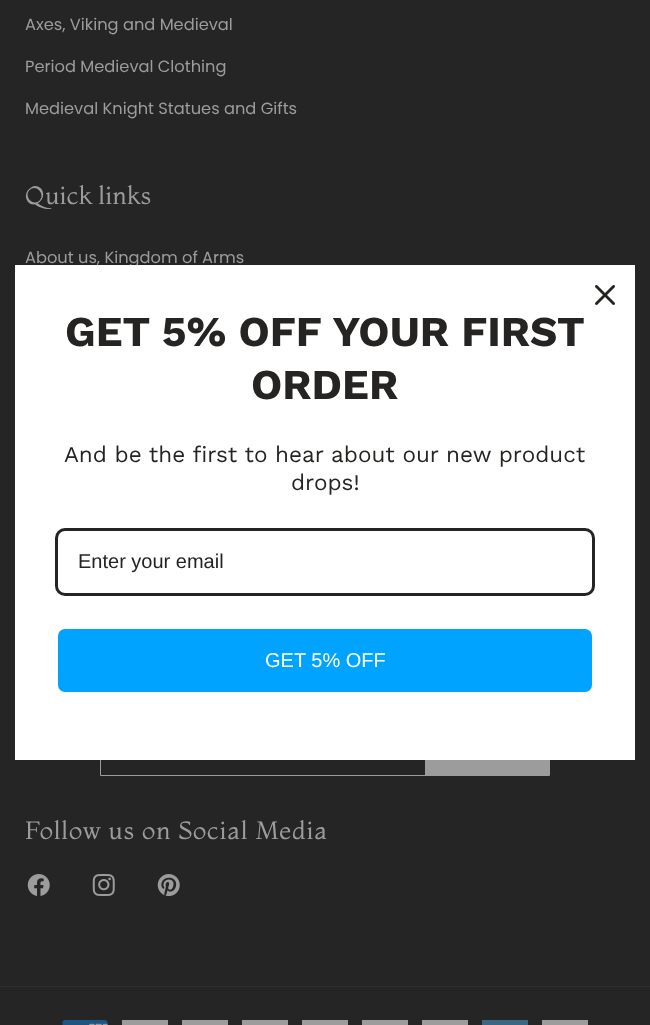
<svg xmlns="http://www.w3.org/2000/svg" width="650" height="1025">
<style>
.a{font:16.25px Poppins;fill:#9c9c9c}
.b{font:25px Montaga;fill:#9c9c9c}
.c{font:25px Montaga;letter-spacing:0.75px;fill:#9c9c9c}
.d{font:bold 42.5px Work Sans;fill:#252422}
.e{font:22.5px Work Sans;fill:#252422}
.f{font:20px Liberation Sans;fill:#252422}
.g{font:20px Liberation Sans;fill:#fff}
</style>
<rect width="100%" height="100%" fill="#252525"/>
<path fill="none" stroke="#9c9c9c" d="M100.5 720.5h449v55H100.5z"/>
<path fill="#9c9c9c" d="M425 760h124v15H425z"/>
<image href="1.png" x="27" y="874" width="23" height="22"/>
<image href="2.png" x="92" y="874" width="23" height="22"/>
<image href="3.png" x="157" y="874" width="23" height="23"/>
<path fill="#2f2f2f" d="M0 986h650v1H0z"/>
<image href="4.png" x="62" y="1020" width="46" height="5"/>
<path fill="#9c9c9c" d="M122 1020h46v5H122z"/>
<path fill="#9c9c9c" d="M182 1020h46v5H182z"/>
<path fill="#9c9c9c" d="M242 1020h46v5H242z"/>
<path fill="#9c9c9c" d="M302 1020h46v5H302z"/>
<path fill="#9c9c9c" d="M362 1020h46v5H362z"/>
<path fill="#9c9c9c" d="M422 1020h46v5H422z"/>
<path fill="#3b6783" d="M482 1020h46v5H482z"/>
<path fill="#9c9c9c" d="M542 1020h46v5H542z"/>
<text class="a" x="25" y="30">Axes, Viking and Medieval</text>
<text class="a" x="25" y="72">Period Medieval Clothing</text>
<text class="a" x="25" y="114">Medieval Knight Statues and Gifts</text>
<text class="b" x="25" y="204">Quick links</text>
<text class="a" x="25" y="263">About us, Kingdom of Arms</text>
<text class="c" x="25" y="839">Follow us on Social Media</text>
<path fill="#fff" d="M15 265h620v495H15z"/>
<image href="5.png" x="595" y="285" width="20" height="20"/>
<text class="d" x="65" y="346">GET 5% OFF YOUR FIRST</text>
<text class="d" x="251" y="399">ORDER</text>
<text class="e" x="64" y="462">And be the first to hear about our new product</text>
<text class="e" x="291" y="490">drops!</text>
<rect fill="none" stroke="#252422" stroke-width="3" x="56.5" y="529.5" width="537" height="65" rx="8.5"/>
<text class="f" x="78" y="568">Enter your email</text>
<rect fill="#00a3ff" stroke="#fff" stroke-width="3" x="56.5" y="627.5" width="537" height="66" rx="8.5"/>
<text class="g" x="265" y="667">GET 5% OFF</text>
</svg>
